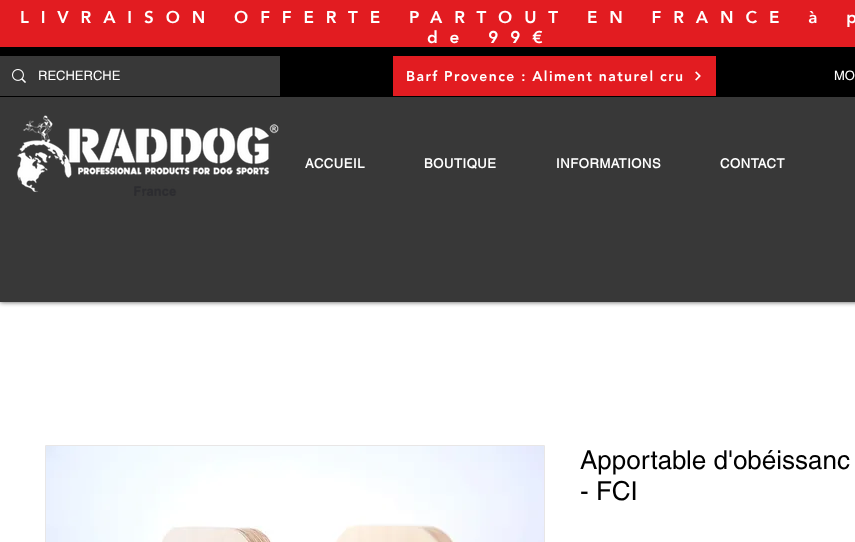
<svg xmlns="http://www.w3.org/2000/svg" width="855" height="542">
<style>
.a{font:900 17px 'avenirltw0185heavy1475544';letter-spacing:11.9px;fill:#fff}
.b{font:13px helvetica;fill:#fff}
.c{font:900 14px 'avenirltw0185heavy1475544';letter-spacing:1.4px;fill:#fff}
.d{font:bold 13px helvetica;letter-spacing:0.6px;fill:#fff}
.e{font:26px helvetica;fill:#000}
</style>
<rect width="100%" height="100%" fill="#fff"/>
<path fill="#000000b3" filter="blur(2.5px)" d="M0 0h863v302H0z"/>
<path fill="#383838" d="M0 97h855v205H0z"/>
<path fill="#e21c21" d="M0 0h855v47H0z"/>
<path fill="#000" d="M0 47h855v50H0z"/>
<path fill="#383838" d="M0 56h280v40H0z"/>
<image href="1.png" x="12" y="69" width="14" height="14"/>
<path fill="#e21c21" d="M393 56h323v40H393z"/>
<image href="2.png" x="695" y="71" width="6" height="10"/>
<image href="3.png" x="17" y="115" width="262" height="81"/>
<path fill="none" stroke="#e8e6e6" d="M45.5 445.5h499v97H45.5z"/>
<image href="4.png" x="46" y="446" width="498" height="96"/>
<text class="a" x="20" y="23">LIVRAISON OFFERTE PARTOUT EN FRANCE à p</text>
<text class="a" x="427" y="43">de 99€</text>
<text class="b" x="38" y="80">RECHERCHE</text>
<text class="c" x="406" y="81">Barf Provence : Aliment naturel cru</text>
<text class="b" x="834" y="80">MO</text>
<text class="d" x="305" y="168">ACCUEIL</text>
<text class="d" x="424" y="168">BOUTIQUE</text>
<text class="d" x="556" y="168">INFORMATIONS</text>
<text class="d" x="720" y="168">CONTACT</text>
<text class="e" x="580" y="469">Apportable d'obéissanc</text>
<text class="e" x="580" y="500">- FCI</text>
</svg>
